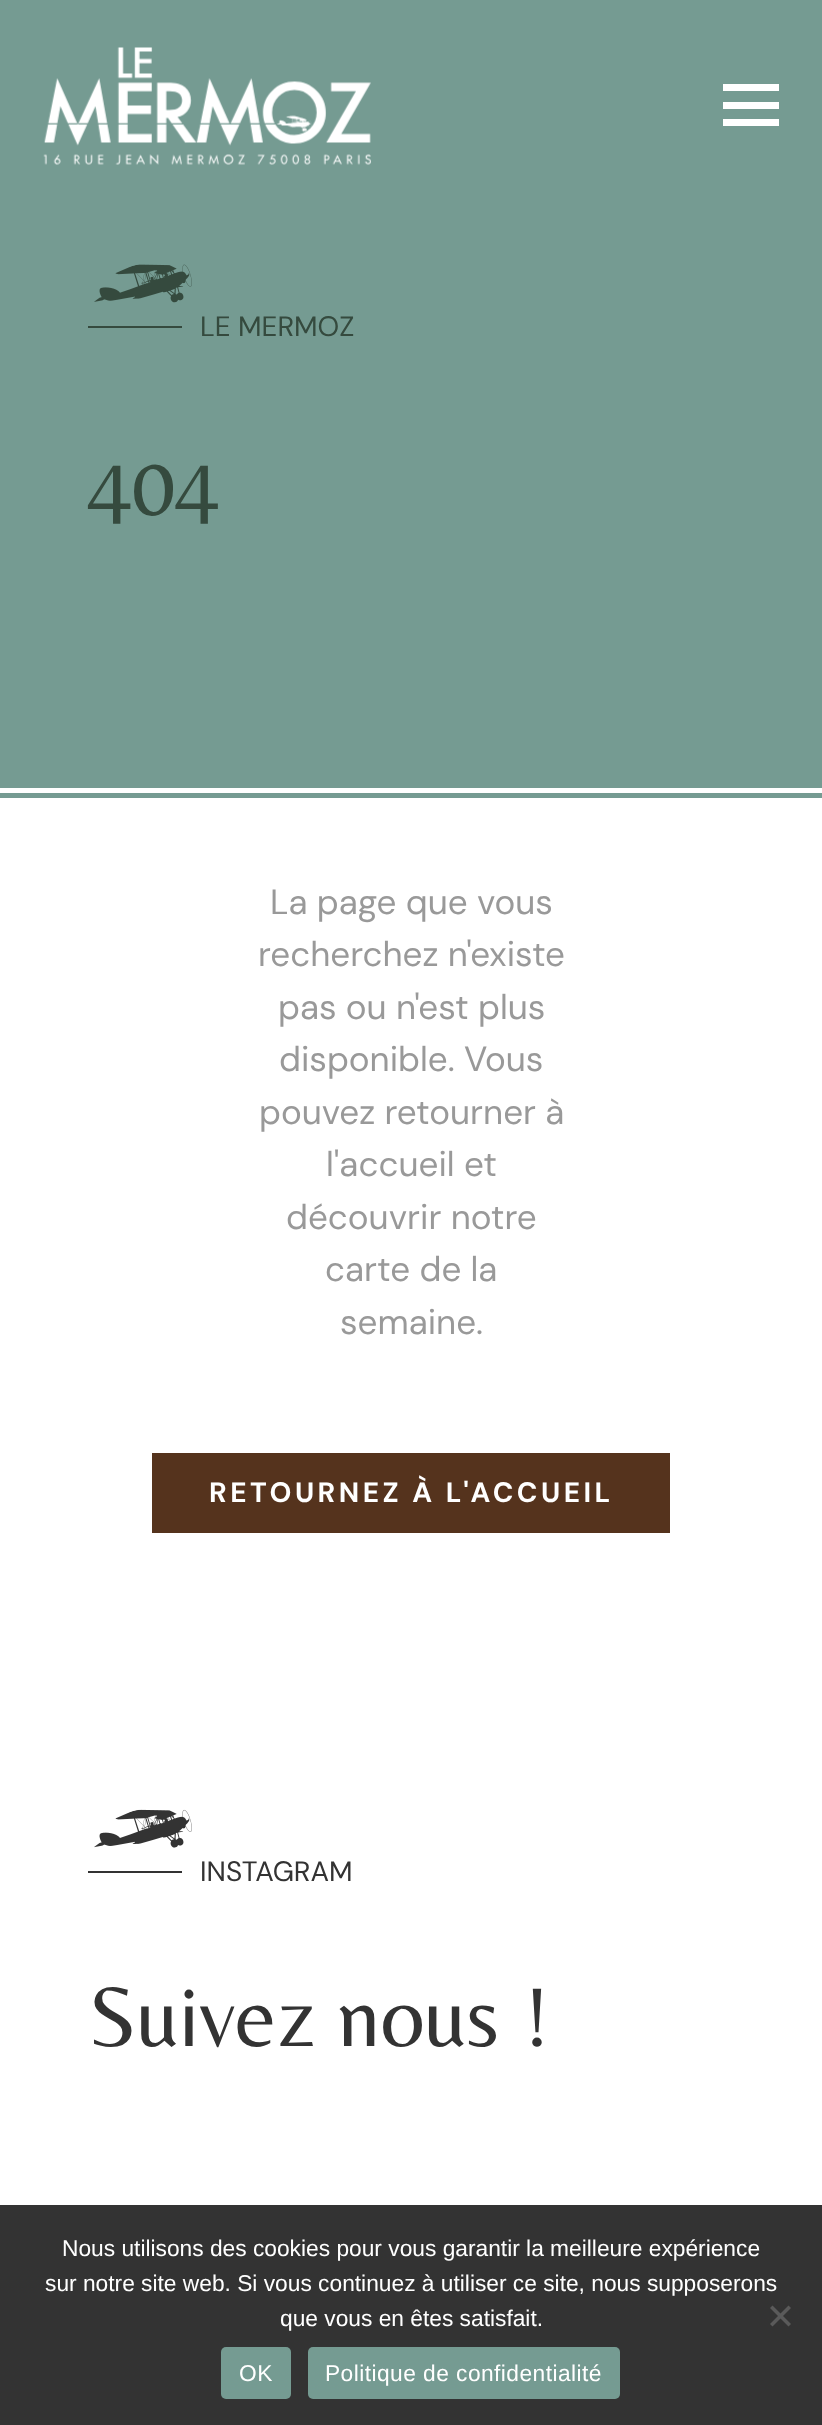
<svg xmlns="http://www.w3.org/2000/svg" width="822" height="2425">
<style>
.a{font:28px DM Sans;fill:#354a3e}
.b{font:87.5px Belleza;fill:#354a3e}
.c{font:35px DM Sans;fill:#999}
.d{font:bold 28px DM Sans;letter-spacing:3.5px;fill:#fff}
.e{font:28px DM Sans;fill:#333}
.f{font:87.5px Belleza;fill:#333}
.g{font:22.75px Liberation Sans;fill:#fff}
.h{font:22.75px Liberation Sans;letter-spacing:0.45px;fill:#fff}
</style>
<rect width="100%" height="100%" fill="#fff"/>
<path fill="#759b92" d="M0 0h822v788H0z"/>
<image href="1.png" x="43" y="47" width="328" height="118"/>
<path fill="#fff" d="M723 102h56v7H723z"/>
<path fill="#fff" d="M723 84h56v7H723z"/>
<path fill="#fff" d="M723 119h56v7H723z"/>
<image href="2.png" x="94" y="264" width="98" height="39"/>
<path fill="#354a3e" d="M88 326h94v2H88z"/>
<path fill="#759b92" d="M0 793h822v5H0z"/>
<path fill="#55331d" d="M152 1453h518v80H152z"/>
<image href="3.png" x="94" y="1809" width="98" height="39"/>
<path fill="#333" d="M88 1871h94v2H88z"/>
<path fill="#333" d="M0 2205h822v220H0z"/>
<path fill="#5a5a5a" d="M788.5 2305.5l2.5 2.5l-18.5 18.5l-2.5-2.5z"/>
<path fill="#5a5a5a" d="M770 2308l2.5-2.5l18.5 18.5l-2.5 2.5z"/>
<rect fill="#759b92" x="221" y="2347" width="70" height="52" rx="5"/>
<rect fill="#759b92" x="308" y="2347" width="312" height="52" rx="5"/>
<text class="a" x="200" y="336">LE MERMOZ</text>
<text class="b" x="88" y="515">404</text>
<text class="c" x="270" y="914">La page que vous</text>
<text class="c" x="258" y="966">recherchez n'existe</text>
<text class="c" x="278" y="1019">pas ou n'est plus</text>
<text class="c" x="279" y="1071">disponible. Vous</text>
<text class="c" x="259" y="1124">pouvez retourner à</text>
<text class="c" x="326" y="1176">l'accueil et</text>
<text class="c" x="286" y="1229">découvrir notre</text>
<text class="c" x="325" y="1281">carte de la</text>
<text class="c" x="340" y="1334">semaine.</text>
<text class="d" x="209" y="1502">RETOURNEZ À L'ACCUEIL</text>
<text class="e" x="200" y="1881">INSTAGRAM</text>
<text class="f" x="88" y="2046">Suivez nous !</text>
<text class="g" x="62" y="2256">Nous utilisons des cookies pour vous garantir la meilleure expérience</text>
<text class="g" x="45" y="2291">sur notre site web. Si vous continuez à utiliser ce site, nous supposerons</text>
<text class="g" x="280" y="2326">que vous en êtes satisfait.</text>
<text class="h" x="239" y="2381">OK</text>
<text class="h" x="325" y="2381">Politique de confidentialité</text>
</svg>
